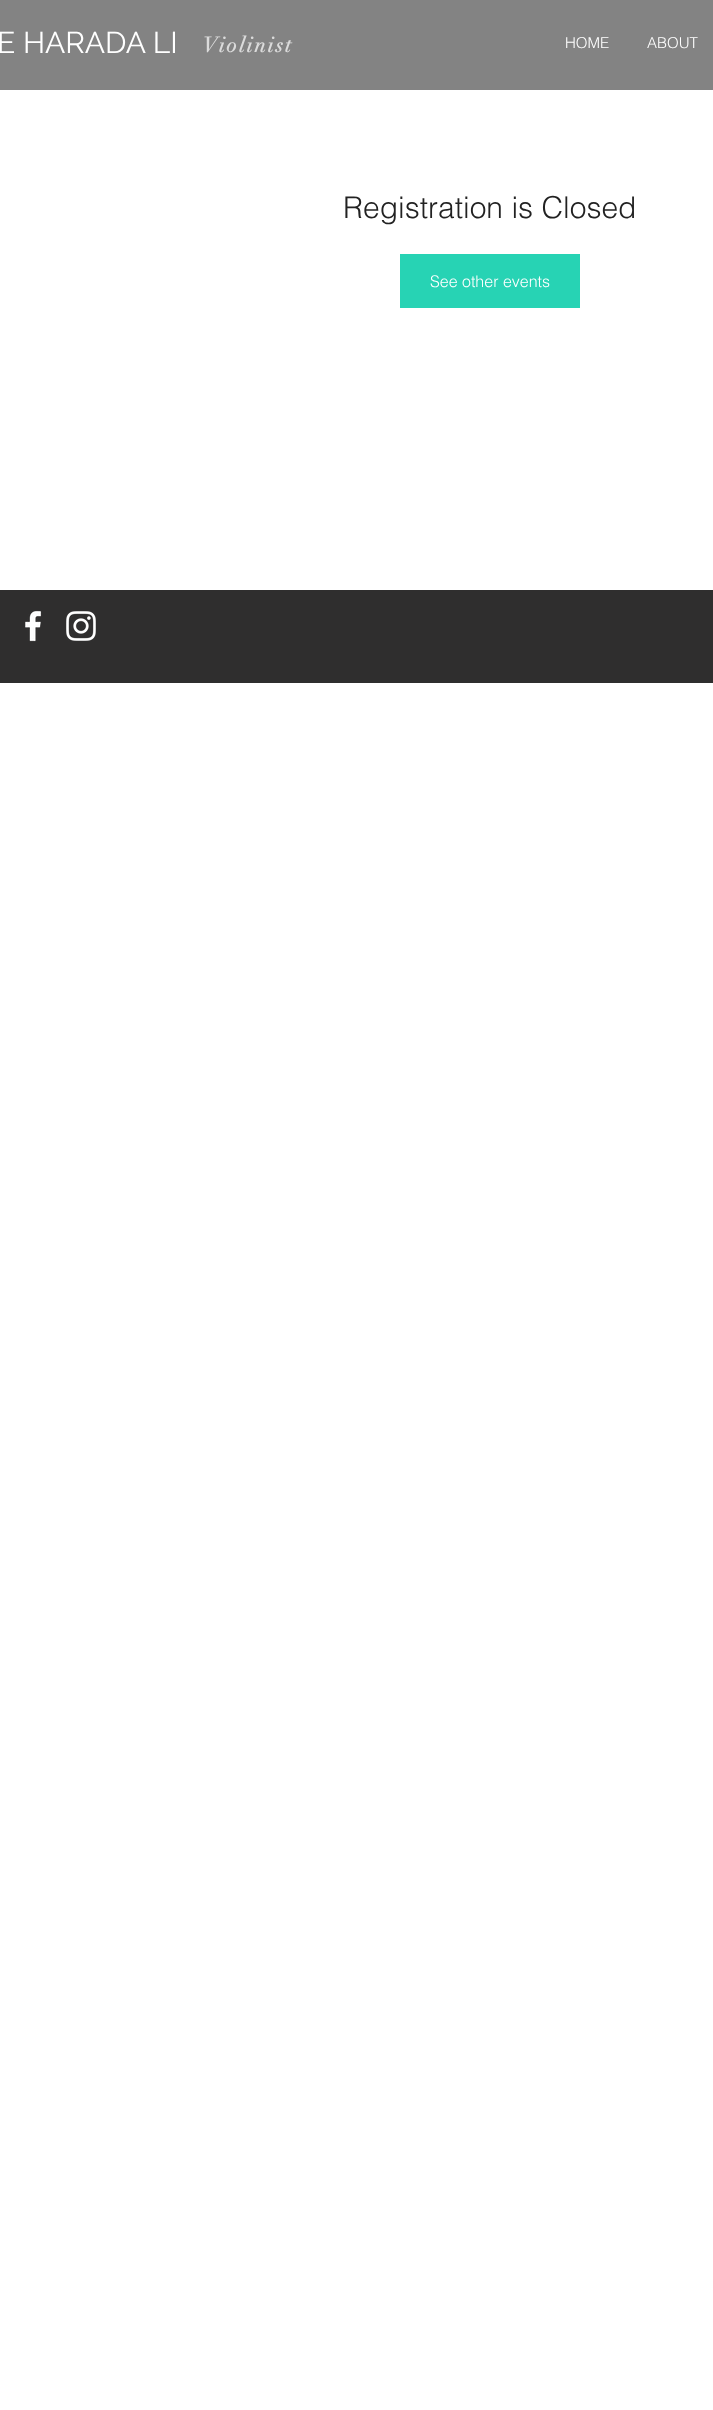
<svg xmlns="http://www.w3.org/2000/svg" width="713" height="2410">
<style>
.a{font:30px Raleway;fill:#fff}
.b{font:bold 21px didot;letter-spacing:2px;fill:#dbdbdb}
.c{font:300 15px helvetica;fill:#fff}
.d{font:300 30px helvetica;fill:#222}
.e{font:300 16px helvetica;fill:#fff}
</style>
<rect width="100%" height="100%" fill="#fff"/>
<path fill="#838383" d="M0 0h713v90H0z"/>
<path fill="#27d3b4" d="M400 254h180v54H400z"/>
<path fill="#2f2e2e" d="M0 590h713v93H0z"/>
<image href="1.png" x="25" y="610" width="17" height="32"/>
<image href="2.png" x="66" y="611" width="30" height="30"/>
<text class="a" x="-3" y="53">E HARADA LI</text>
<text class="b" x="203" y="52">Violinist</text>
<text class="c" x="565" y="48">HOME</text>
<text class="c" x="647" y="48">ABOUT</text>
<text class="d" x="343" y="218">Registration is Closed</text>
<text class="e" x="430" y="287">See other events</text>
</svg>
